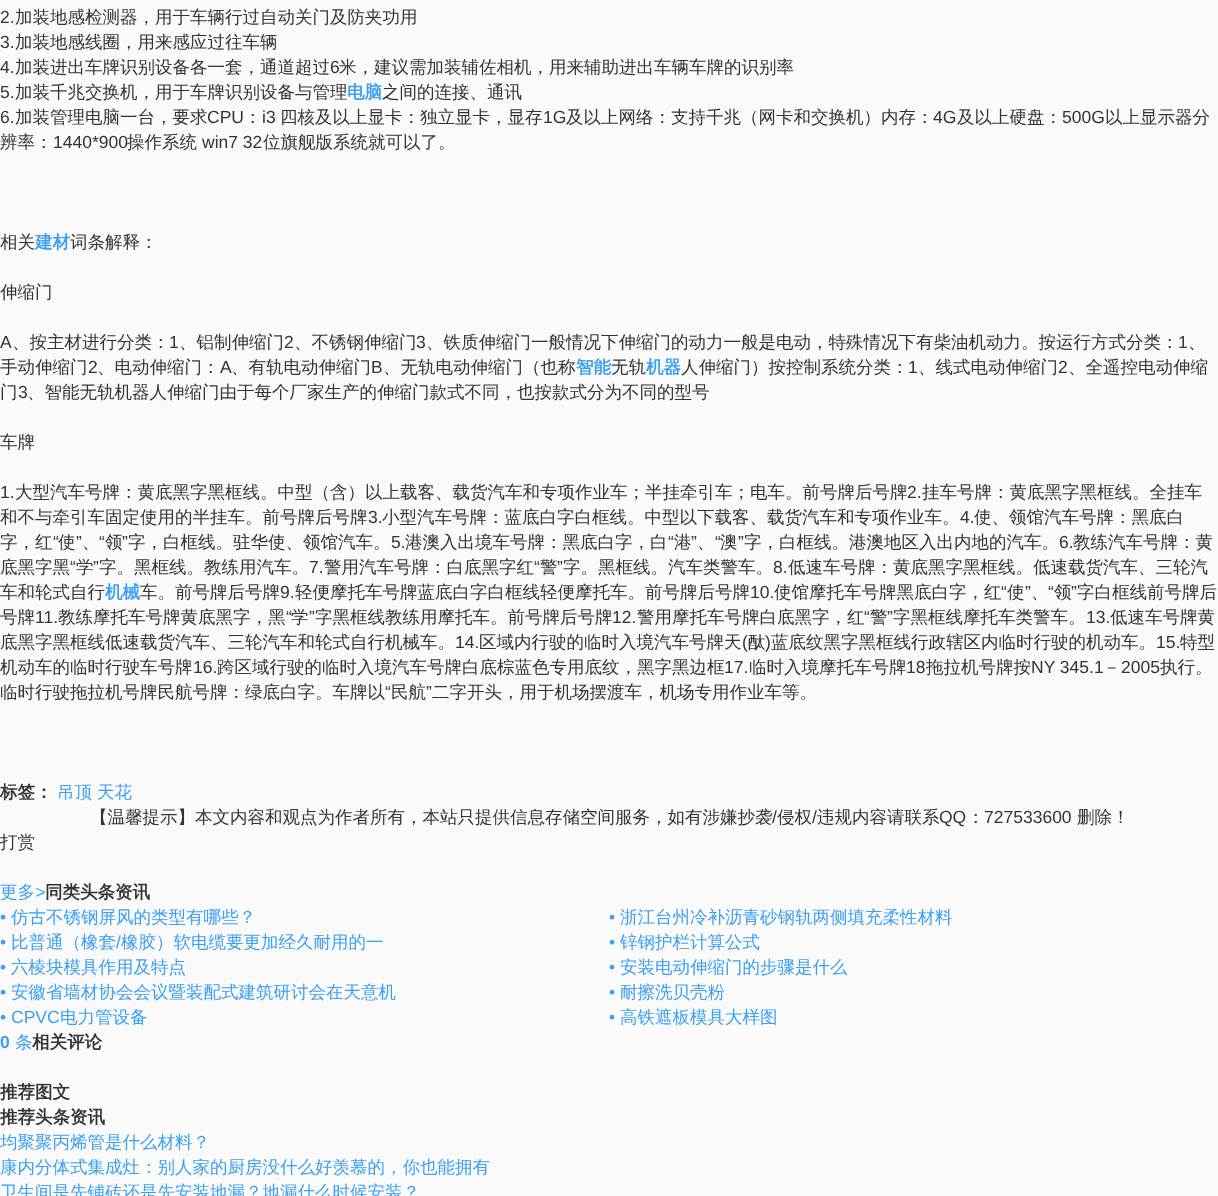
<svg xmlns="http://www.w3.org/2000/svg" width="1218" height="1196">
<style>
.a{font:17.5px Liberation Sans;fill:#333}
.b{font:500 17.5px WenQuanYi Zen Hei;fill:#333}
.c{font:bold 17.5px WenQuanYi Zen Hei;fill:#3b9ff3}
.d{font:bold 17.5px WenQuanYi Zen Hei;fill:#333}
.e{font:500 17.5px WenQuanYi Zen Hei;fill:#3b9ff3}
.f{font:italic 17.5px Liberation Sans;fill:#3b9ff3}
.g{font:17.5px Liberation Sans;fill:#3b9ff3}
.h{font:bold 17.5px Liberation Sans;fill:#3b9ff3}
</style>
<rect width="100%" height="100%" fill="#fafafa"/>
<text class="a" x="0" y="23">2.</text>
<text class="b" x="15" y="23">加装地感检测器，用于车辆行过自动关门及防夹功用</text>
<text class="a" x="0" y="48">3.</text>
<text class="b" x="15" y="48">加装地感线圈，用来感应过往车辆</text>
<text class="a" x="0" y="73">4.</text>
<text class="b" x="15" y="73">加装进出车牌识别设备各一套，通道超过</text>
<text class="a" x="330" y="73">6</text>
<text class="b" x="339" y="73">米，建议需加装辅佐相机，用来辅助进出车辆车牌的识别率</text>
<text class="a" x="0" y="98">5.</text>
<text class="b" x="15" y="98">加装千兆交换机，用于车牌识别设备与管理</text>
<text class="c" x="347" y="98">电脑</text>
<text class="b" x="382" y="98">之间的连接、通讯</text>
<text class="a" x="0" y="123">6.</text>
<text class="b" x="15" y="123">加装管理电脑一台，要求</text>
<text class="a" x="207" y="123">CPU</text>
<text class="b" x="244" y="123">：</text>
<text class="a" x="262" y="123">i3</text>
<text class="b" x="280" y="123">四核及以上显卡：独立显卡，显存</text>
<text class="a" x="543" y="123">1G</text>
<text class="b" x="566" y="123">及以上网络：支持千兆（网卡和交换机）内存：</text>
<text class="a" x="933" y="123">4G</text>
<text class="b" x="957" y="123">及以上硬盘：</text>
<text class="a" x="1062" y="123">500G</text>
<text class="b" x="1105" y="123">以上显示器分</text>
<text class="b" x="0" y="148">辨率：</text>
<text class="a" x="53" y="148">1440*900</text>
<text class="b" x="127" y="148">操作系统</text>
<text class="a" x="202" y="148">win7 32</text>
<text class="b" x="263" y="148">位旗舰版系统就可以了。</text>
<text class="b" x="0" y="248">相关</text>
<text class="c" x="35" y="248">建材</text>
<text class="b" x="70" y="248">词条解释：</text>
<text class="b" x="0" y="298">伸缩门</text>
<text class="a" x="0" y="348">A</text>
<text class="b" x="12" y="348">、按主材进行分类：</text>
<text class="a" x="169" y="348">1</text>
<text class="b" x="179" y="348">、铝制伸缩门</text>
<text class="a" x="284" y="348">2</text>
<text class="b" x="294" y="348">、不锈钢伸缩门</text>
<text class="a" x="416" y="348">3</text>
<text class="b" x="426" y="348">、铁质伸缩门一般情况下伸缩门的动力一般是电动，特殊情况下有柴油机动力。按运行方式分类：</text>
<text class="a" x="1178" y="348">1</text>
<text class="b" x="1188" y="348">、</text>
<text class="b" x="0" y="373">手动伸缩门</text>
<text class="a" x="88" y="373">2</text>
<text class="b" x="97" y="373">、电动伸缩门：</text>
<text class="a" x="220" y="373">A</text>
<text class="b" x="231" y="373">、有轨电动伸缩门</text>
<text class="a" x="371" y="373">B</text>
<text class="b" x="383" y="373">、无轨电动伸缩门（也称</text>
<text class="c" x="576" y="373">智能</text>
<text class="b" x="611" y="373">无轨</text>
<text class="c" x="646" y="373">机器</text>
<text class="b" x="681" y="373">人伸缩门）按控制系统分类：</text>
<text class="a" x="908" y="373">1</text>
<text class="b" x="918" y="373">、线式电动伸缩门</text>
<text class="a" x="1058" y="373">2</text>
<text class="b" x="1068" y="373">、全遥控电动伸缩</text>
<text class="b" x="0" y="398">门</text>
<text class="a" x="18" y="398">3</text>
<text class="b" x="27" y="398">、智能无轨机器人伸缩门由于每个厂家生产的伸缩门款式不同，也按款式分为不同的型号</text>
<text class="b" x="0" y="448">车牌</text>
<text class="a" x="0" y="498">1.</text>
<text class="b" x="15" y="498">大型汽车号牌：黄底黑字黑框线。中型（含）以上载客、载货汽车和专项作业车；半挂牵引车；电车。前号牌后号牌</text>
<text class="a" x="907" y="498">2.</text>
<text class="b" x="922" y="498">挂车号牌：黄底黑字黑框线。全挂车</text>
<text class="b" x="0" y="523">和不与牵引车固定使用的半挂车。前号牌后号牌</text>
<text class="a" x="368" y="523">3.</text>
<text class="b" x="382" y="523">小型汽车号牌：蓝底白字白框线。中型以下载客、载货汽车和专项作业车。</text>
<text class="a" x="960" y="523">4.</text>
<text class="b" x="974" y="523">使、领馆汽车号牌：黑底白</text>
<text class="b" x="0" y="548">字，红</text>
<text class="a" x="53" y="548">“</text>
<text class="b" x="58" y="548">使</text>
<text class="a" x="76" y="548">”</text>
<text class="b" x="82" y="548">、</text>
<text class="a" x="99" y="548">“</text>
<text class="b" x="105" y="548">领</text>
<text class="a" x="122" y="548">”</text>
<text class="b" x="128" y="548">字，白框线。驻华使、领馆汽车。</text>
<text class="a" x="391" y="548">5.</text>
<text class="b" x="405" y="548">港澳入出境车号牌：黑底白字，白</text>
<text class="a" x="668" y="548">“</text>
<text class="b" x="674" y="548">港</text>
<text class="a" x="691" y="548">”</text>
<text class="b" x="697" y="548">、</text>
<text class="a" x="715" y="548">“</text>
<text class="b" x="720" y="548">澳</text>
<text class="a" x="738" y="548">”</text>
<text class="b" x="744" y="548">字，白框线。港澳地区入出内地的汽车。</text>
<text class="a" x="1059" y="548">6.</text>
<text class="b" x="1073" y="548">教练汽车号牌：黄</text>
<text class="b" x="0" y="573">底黑字黑</text>
<text class="a" x="70" y="573">“</text>
<text class="b" x="76" y="573">学</text>
<text class="a" x="93" y="573">”</text>
<text class="b" x="99" y="573">字。黑框线。教练用汽车。</text>
<text class="a" x="309" y="573">7.</text>
<text class="b" x="324" y="573">警用汽车号牌：白底黑字红</text>
<text class="a" x="534" y="573">“</text>
<text class="b" x="540" y="573">警</text>
<text class="a" x="557" y="573">”</text>
<text class="b" x="563" y="573">字。黑框线。汽车类警车。</text>
<text class="a" x="773" y="573">8.</text>
<text class="b" x="788" y="573">低速车号牌：黄底黑字黑框线。低速载货汽车、三轮汽</text>
<text class="b" x="0" y="598">车和轮式自行</text>
<text class="c" x="105" y="598">机械</text>
<text class="b" x="140" y="598">车。前号牌后号牌</text>
<text class="a" x="280" y="598">9.</text>
<text class="b" x="295" y="598">轻便摩托车号牌蓝底白字白框线轻便摩托车。前号牌后号牌</text>
<text class="a" x="750" y="598">10.</text>
<text class="b" x="774" y="598">使馆摩托车号牌黑底白字，红</text>
<text class="a" x="1001" y="598">“</text>
<text class="b" x="1007" y="598">使</text>
<text class="a" x="1025" y="598">”</text>
<text class="a" x="1048" y="598">“</text>
<text class="b" x="1054" y="598">领</text>
<text class="a" x="1071" y="598">”</text>
<text class="b" x="1077" y="598">字白框线前号牌后</text>
<text class="b" x="1031" y="598">、</text>
<text class="b" x="0" y="623">号牌</text>
<text class="a" x="35" y="623">11.</text>
<text class="b" x="58" y="623">教练摩托车号牌黄底黑字，黑</text>
<text class="a" x="286" y="623">“</text>
<text class="b" x="291" y="623">学</text>
<text class="a" x="309" y="623">”</text>
<text class="b" x="315" y="623">字黑框线教练用摩托车。前号牌后号牌</text>
<text class="a" x="612" y="623">12.</text>
<text class="b" x="637" y="623">警用摩托车号牌白底黑字，红</text>
<text class="a" x="864" y="623">“</text>
<text class="b" x="870" y="623">警</text>
<text class="a" x="887" y="623">”</text>
<text class="b" x="893" y="623">字黑框线摩托车类警车。</text>
<text class="a" x="1086" y="623">13.</text>
<text class="b" x="1110" y="623">低速车号牌黄</text>
<text class="b" x="0" y="648">底黑字黑框线低速载货汽车、三轮汽车和轮式自行机械车。</text>
<text class="a" x="455" y="648">14.</text>
<text class="b" x="479" y="648">区域内行驶的临时入境汽车号牌天</text>
<text class="a" x="742" y="648">(</text>
<text class="b" x="748" y="648">酞</text>
<text class="a" x="765" y="648">)</text>
<text class="b" x="771" y="648">蓝底纹黑字黑框线行政辖区内临时行驶的机动车。</text>
<text class="a" x="1156" y="648">15.</text>
<text class="b" x="1180" y="648">特型</text>
<text class="b" x="0" y="673">机动车的临时行驶车号牌</text>
<text class="a" x="193" y="673">16.</text>
<text class="b" x="217" y="673">跨区域行驶的临时入境汽车号牌白底棕蓝色专用底纹，黑字黑边框</text>
<text class="a" x="724" y="673">17.</text>
<text class="b" x="749" y="673">临时入境摩托车号牌</text>
<text class="a" x="906" y="673">18</text>
<text class="b" x="926" y="673">拖拉机号牌按</text>
<text class="a" x="1031" y="673">NY 345.1</text>
<text class="b" x="1103" y="673">－</text>
<text class="a" x="1121" y="673">2005</text>
<text class="b" x="1160" y="673">执行。</text>
<text class="b" x="0" y="698">临时行驶拖拉机号牌民航号牌：绿底白字。车牌以</text>
<text class="a" x="385" y="698">“</text>
<text class="b" x="391" y="698">民航</text>
<text class="a" x="426" y="698">”</text>
<text class="b" x="432" y="698">二字开头，用于机场摆渡车，机场专用作业车等。</text>
<text class="d" x="0" y="798">标签：</text>
<text class="e" x="57" y="798">吊顶</text>
<text class="e" x="97" y="798">天花</text>
<text class="b" x="90" y="823">【温馨提示】本文内容和观点为作者所有，本站只提供信息存储空间服务，如有涉嫌抄袭</text>
<text class="a" x="772" y="823">/</text>
<text class="b" x="777" y="823">侵权</text>
<text class="a" x="812" y="823">/</text>
<text class="b" x="817" y="823">违规内容请联系</text>
<text class="a" x="939" y="823">QQ</text>
<text class="b" x="967" y="823">：</text>
<text class="a" x="984" y="823">727533600</text>
<text class="b" x="1077" y="823">删除！</text>
<text class="b" x="0" y="848">打赏</text>
<text class="e" x="0" y="898">更多</text>
<text class="f" x="35" y="898">&gt;</text>
<text class="d" x="45" y="898">同类头条资讯</text>
<text class="g" x="0" y="923">•</text>
<text class="e" x="11" y="923">仿古不锈钢屏风的类型有哪些？</text>
<text class="g" x="609" y="923">•</text>
<text class="e" x="620" y="923">浙江台州冷补沥青砂钢轨两侧填充柔性材料</text>
<text class="g" x="0" y="948">•</text>
<text class="e" x="11" y="948">比普通（橡套</text>
<text class="g" x="116" y="948">/</text>
<text class="e" x="121" y="948">橡胶）软电缆要更加经久耐用的一</text>
<text class="g" x="609" y="948">•</text>
<text class="e" x="620" y="948">锌钢护栏计算公式</text>
<text class="g" x="0" y="973">•</text>
<text class="e" x="11" y="973">六棱块模具作用及特点</text>
<text class="g" x="609" y="973">•</text>
<text class="e" x="620" y="973">安装电动伸缩门的步骤是什么</text>
<text class="g" x="0" y="998">•</text>
<text class="e" x="11" y="998">安徽省墙材协会会议暨装配式建筑研讨会在天意机</text>
<text class="g" x="609" y="998">•</text>
<text class="e" x="620" y="998">耐擦洗贝壳粉</text>
<text class="g" x="0" y="1023">• CPVC</text>
<text class="e" x="60" y="1023">电力管设备</text>
<text class="g" x="609" y="1023">•</text>
<text class="e" x="620" y="1023">高铁遮板模具大样图</text>
<text class="h" x="0" y="1048">0</text>
<text class="e" x="15" y="1048">条</text>
<text class="d" x="32" y="1048">相关评论</text>
<text class="d" x="0" y="1098">推荐图文</text>
<text class="d" x="0" y="1123">推荐头条资讯</text>
<text class="e" x="0" y="1148">均聚聚丙烯管是什么材料？</text>
<text class="e" x="0" y="1173">康内分体式集成灶：别人家的厨房没什么好羡慕的，你也能拥有</text>
<text class="e" x="0" y="1198">卫生间是先铺砖还是先安装地漏？地漏什么时候安装？</text>
</svg>
